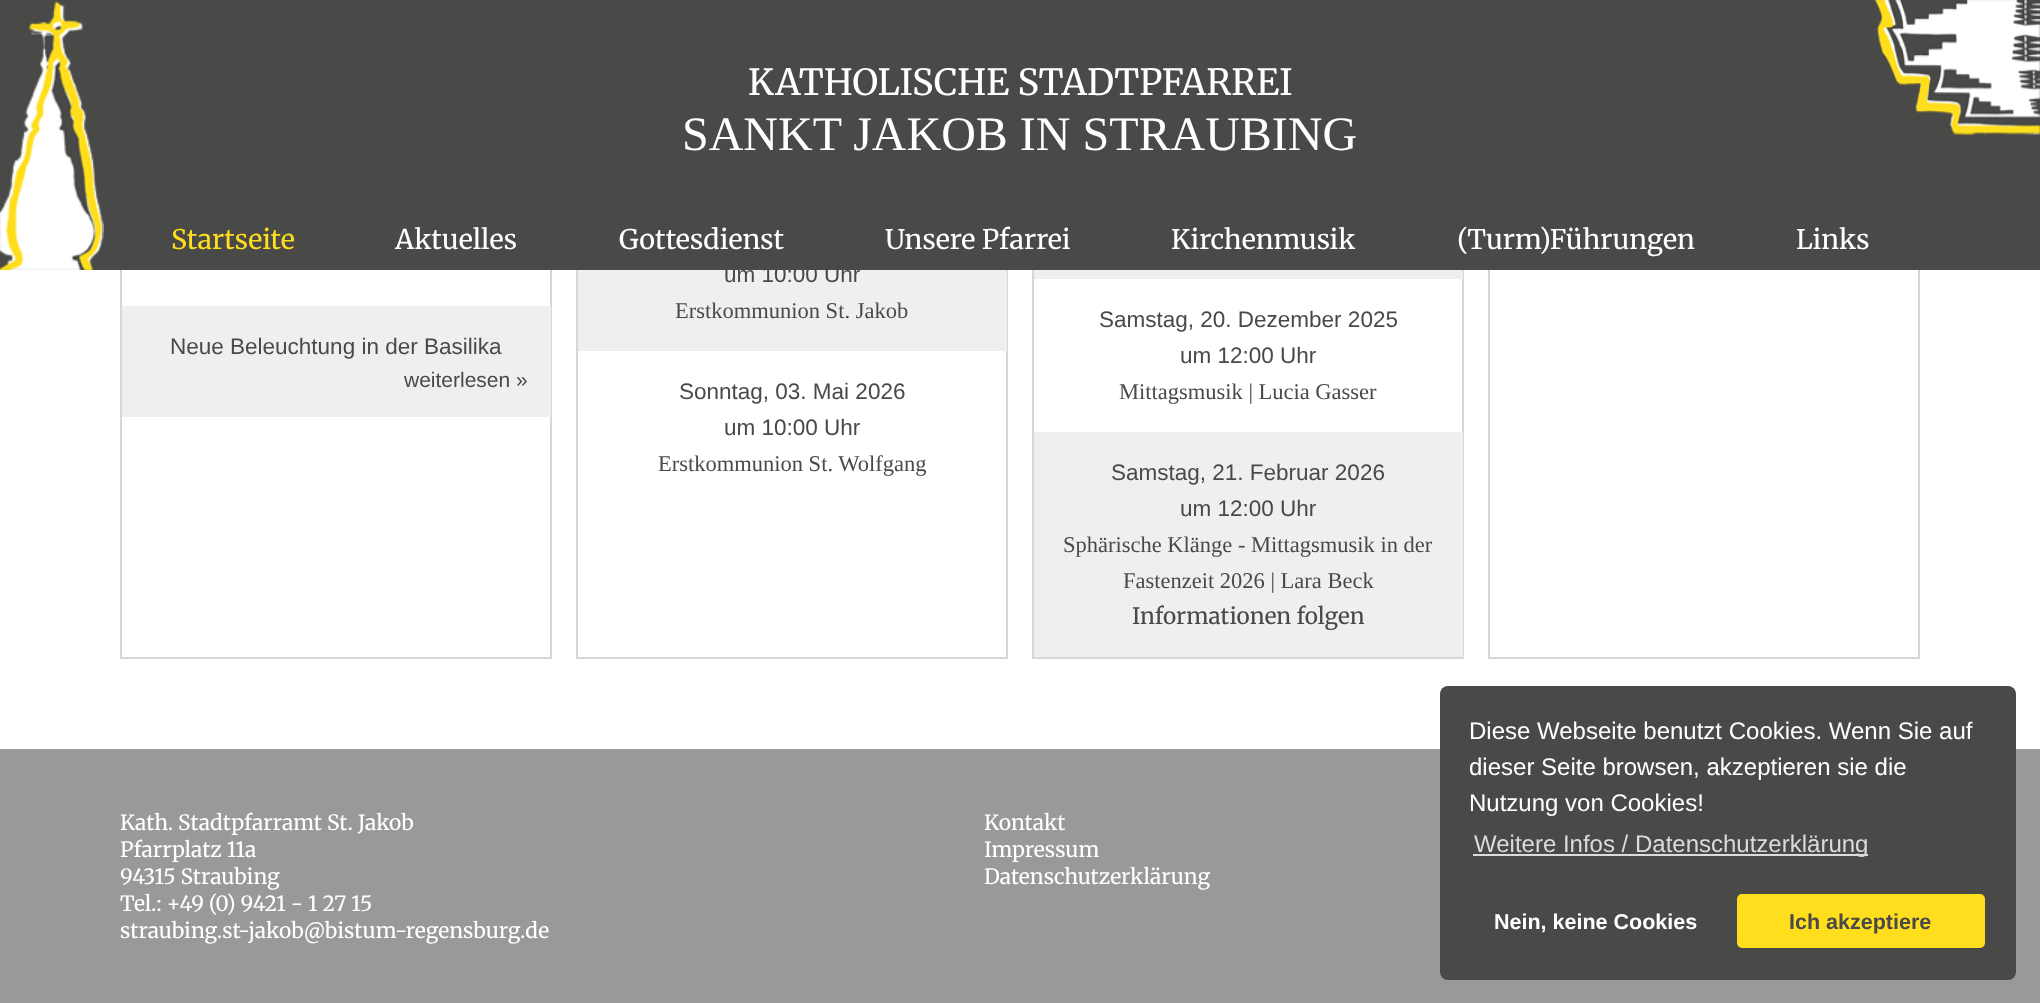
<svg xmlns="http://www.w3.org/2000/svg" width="2040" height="1003">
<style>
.a{font:36px Merriweather;fill:#fff}
.b{font:48px Liberation Serif;fill:#fff}
.c{font:27px Merriweather;fill:#ffde1d}
.d{font:27px Merriweather;fill:#fff}
.e{font:22.5px Liberation Sans;fill:#494948}
.f{font:21px Liberation Sans;fill:#494948}
.g{font:22.5px Liberation Serif;fill:#494948}
.h{font:22.5px Merriweather;fill:#494948}
.i{font:21px Merriweather;fill:#fff}
.j{font:24px Liberation Sans;fill:#fff}
.k{font:24px Liberation Sans;fill:#dbdbda}
.l{font:bold 21.5px Liberation Sans;fill:#fff}
.m{font:bold 21.5px Liberation Sans;fill:#494948}
</style>
<rect width="100%" height="100%" fill="#999"/>
<path fill="#fff" d="M0 270h2040v479H0z"/>
<path fill="none" stroke="#d7d7d7" stroke-width="2" d="M121 -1h430v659H121z"/>
<path fill="none" stroke="#d7d7d7" stroke-width="2" d="M577 -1h430v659H577z"/>
<path fill="none" stroke="#d7d7d7" stroke-width="2" d="M1033 -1h430v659H1033z"/>
<path fill="none" stroke="#d7d7d7" stroke-width="2" d="M1489 -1h430v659H1489z"/>
<path fill="#494948" d="M0 0h2040v270H0z"/>
<image href="1.png" x="0" y="1" width="104" height="269"/>
<image href="2.png" x="1874" y="0" width="166" height="135"/>
<path fill="#efefef" d="M122 306h429v111H122z"/>
<path fill="#efefef" d="M578 270h429v81H578z"/>
<path fill="#efefef" d="M1034 270h429v9H1034z"/>
<path fill="#efefef" d="M1034 432h429v225H1034z"/>
<rect fill="#494948" x="1440" y="686" width="576" height="294" rx="8"/>
<path fill="#dbdbda" d="M1473 854h395v2H1473z"/>
<rect fill="#ffde1d" stroke="#494948" stroke-width="3" x="1735.5" y="892.5" width="251" height="57" rx="6.5"/>
<text class="a" x="748" y="95">KATHOLISCHE STADTPFARREI</text>
<text class="b" x="682" y="150">SANKT JAKOB IN STRAUBING</text>
<text class="c" x="171" y="249">Startseite</text>
<text class="d" x="395" y="249">Aktuelles</text>
<text class="d" x="619" y="249">Gottesdienst</text>
<text class="d" x="885" y="249">Unsere Pfarrei</text>
<text class="d" x="1171" y="249">Kirchenmusik</text>
<text class="d" x="1457" y="249">(Turm)Führungen</text>
<text class="d" x="1796" y="249">Links</text>
<text class="e" x="170" y="354">Neue Beleuchtung in der Basilika</text>
<text class="f" x="404" y="387">weiterlesen »</text>
<text class="e" x="724" y="282">um 10:00 Uhr</text>
<text class="g" x="675" y="318">Erstkommunion St. Jakob</text>
<text class="e" x="679" y="399">Sonntag, 03. Mai 2026</text>
<text class="e" x="724" y="435">um 10:00 Uhr</text>
<text class="g" x="658" y="471">Erstkommunion St. Wolfgang</text>
<text class="e" x="1099" y="327">Samstag, 20. Dezember 2025</text>
<text class="e" x="1180" y="363">um 12:00 Uhr</text>
<text class="g" x="1119" y="399">Mittagsmusik | Lucia Gasser</text>
<text class="e" x="1111" y="480">Samstag, 21. Februar 2026</text>
<text class="e" x="1180" y="516">um 12:00 Uhr</text>
<text class="g" x="1063" y="552">Sphärische Klänge - Mittagsmusik in der</text>
<text class="g" x="1123" y="588">Fastenzeit 2026 | Lara Beck</text>
<text class="h" x="1132" y="624">Informationen folgen</text>
<text class="i" x="120" y="830">Kath. Stadtpfarramt St. Jakob</text>
<text class="i" x="120" y="857">Pfarrplatz 11a</text>
<text class="i" x="120" y="884">94315 Straubing</text>
<text class="i" x="120" y="911">Tel.: +49 (0) 9421 - 1 27 15</text>
<text class="i" x="120" y="938">straubing.st-jakob@bistum-regensburg.de</text>
<text class="i" x="984" y="830">Kontakt</text>
<text class="i" x="984" y="857">Impressum</text>
<text class="i" x="984" y="884">Datenschutzerklärung</text>
<text class="j" x="1469" y="739">Diese Webseite benutzt Cookies. Wenn Sie auf</text>
<text class="j" x="1469" y="775">dieser Seite browsen, akzeptieren sie die</text>
<text class="j" x="1469" y="811">Nutzung von Cookies!</text>
<text class="k" x="1474" y="852">Weitere Infos / Datenschutzerklärung</text>
<text class="l" x="1494" y="929">Nein, keine Cookies</text>
<text class="m" x="1789" y="929">Ich akzeptiere</text>
</svg>
